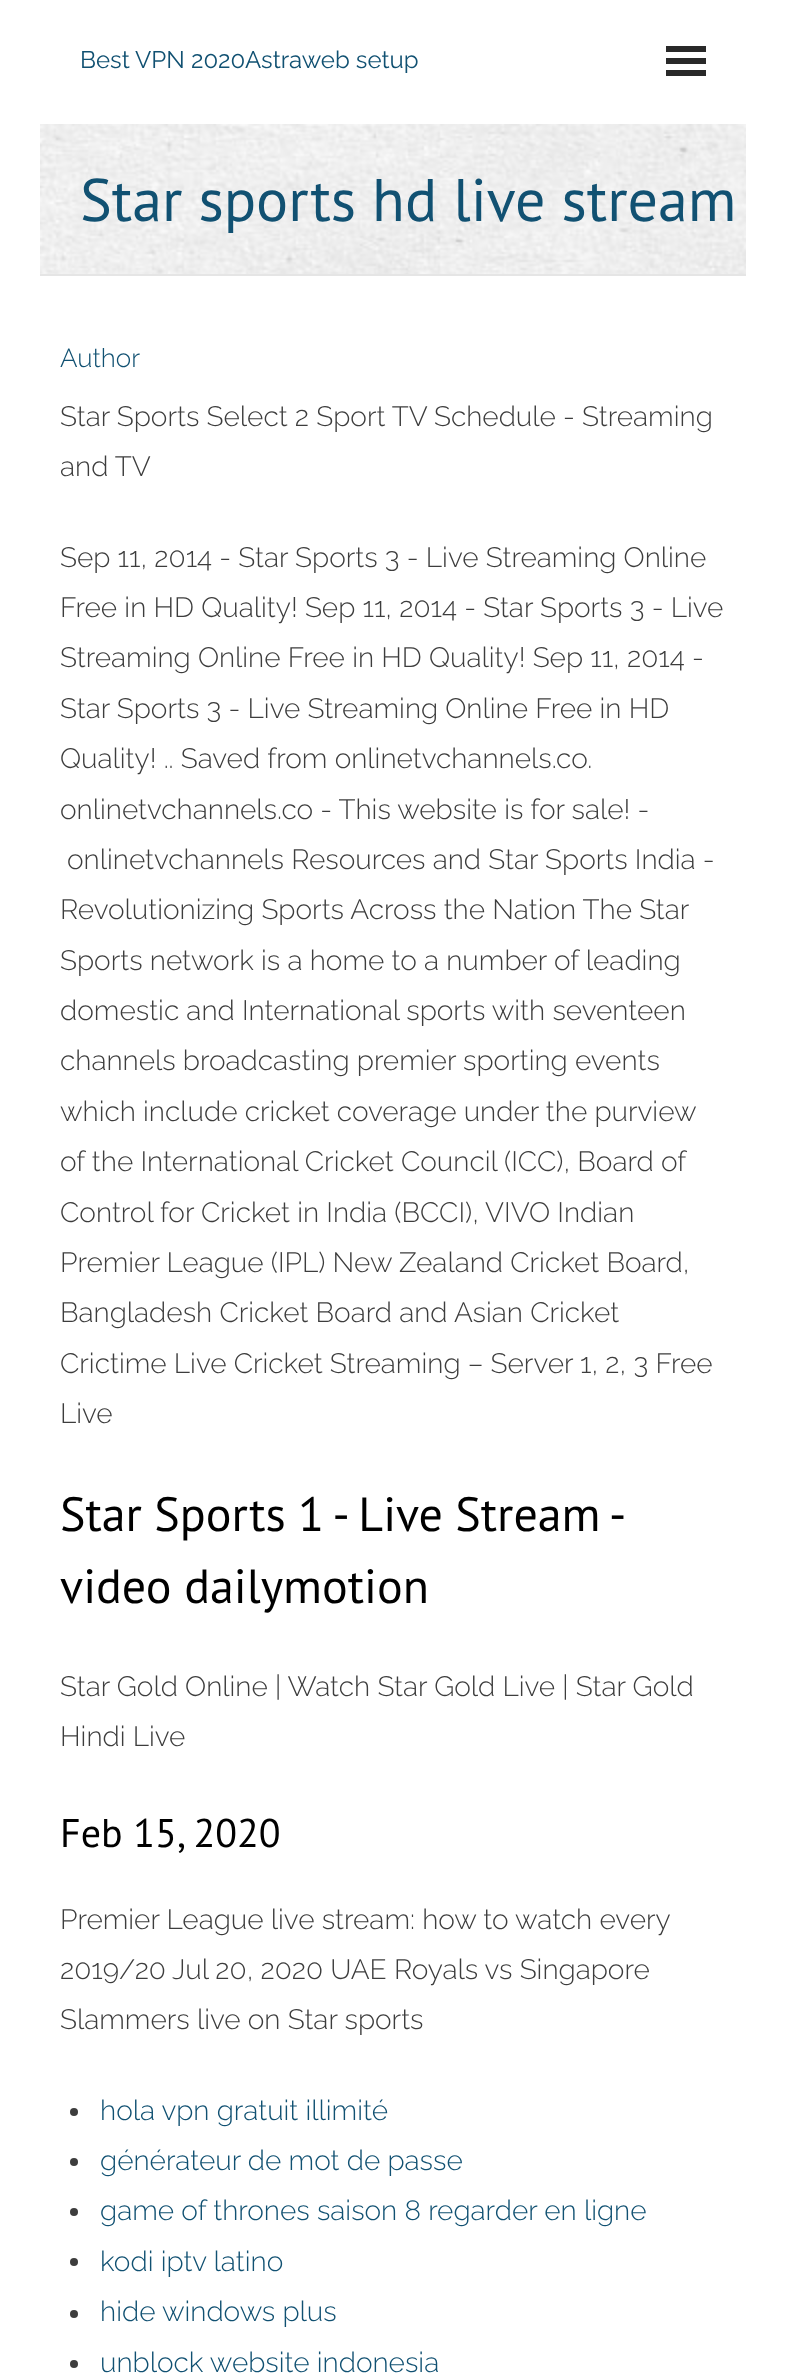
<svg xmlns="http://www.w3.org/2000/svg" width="785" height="2374">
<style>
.a{font:24px Raleway;fill:#115172}
.b{font:60px PT Sans;fill:#115172}
.c{font:300 26px Raleway;fill:#115172}
.d{font:300 28px Raleway;fill:#3d3d3d}
.e{font:48px PT Sans;fill:#000}
.f{font:40px PT Sans;fill:#000}
.g{font:300 28px Raleway;fill:#115172}
</style>
<rect width="100%" height="100%" fill="#fff"/>
<path fill="#292929" d="M666 46h40v6H666z"/>
<path fill="#292929" d="M666 58h40v6H666z"/>
<path fill="#292929" d="M666 70h40v6H666z"/>
<image href="1.png" x="40" y="124" width="706" height="150"/>
<path fill="#e5e5e5" d="M40 274h706v2H40z"/>
<circle fill="#3d3d3d" cx="74" cy="2112" r="4"/>
<circle fill="#3d3d3d" cx="74" cy="2162" r="4"/>
<circle fill="#3d3d3d" cx="74" cy="2212" r="4"/>
<circle fill="#3d3d3d" cx="74" cy="2262" r="4"/>
<circle fill="#3d3d3d" cx="74" cy="2314" r="4"/>
<circle fill="#3d3d3d" cx="74" cy="2364" r="4"/>
<text class="a" x="80" y="68">Best VPN 2020</text>
<text class="a" x="245" y="68">Astraweb setup</text>
<text class="b" x="80" y="221">Star sports hd live stream</text>
<text class="c" x="60" y="367">Author</text>
<text class="d" x="60" y="426">Star Sports Select 2 Sport TV Schedule - Streaming</text>
<text class="d" x="60" y="476">and TV</text>
<text class="d" x="60" y="567">Sep 11, 2014 - Star Sports 3 - Live Streaming Online</text>
<text class="d" x="60" y="617">Free in HD Quality! Sep 11, 2014 - Star Sports 3 - Live</text>
<text class="d" x="60" y="667">Streaming Online Free in HD Quality! Sep 11, 2014 -</text>
<text class="d" x="60" y="718">Star Sports 3 - Live Streaming Online Free in HD</text>
<text class="d" x="60" y="768">Quality! .. Saved from onlinetvchannels.co.</text>
<text class="d" x="60" y="819">onlinetvchannels.co - This website is for sale! -</text>
<text class="d" x="67" y="869">onlinetvchannels Resources and Star Sports India -</text>
<text class="d" x="60" y="919">Revolutionizing Sports Across the Nation The Star</text>
<text class="d" x="60" y="970">Sports network is a home to a number of leading</text>
<text class="d" x="60" y="1020">domestic and International sports with seventeen</text>
<text class="d" x="60" y="1070">channels broadcasting premier sporting events</text>
<text class="d" x="60" y="1121">which include cricket coverage under the purview</text>
<text class="d" x="60" y="1171">of the International Cricket Council (ICC), Board of</text>
<text class="d" x="60" y="1222">Control for Cricket in India (BCCI), VIVO Indian</text>
<text class="d" x="60" y="1272">Premier League (IPL) New Zealand Cricket Board,</text>
<text class="d" x="60" y="1322">Bangladesh Cricket Board and Asian Cricket</text>
<text class="d" x="60" y="1373">Crictime Live Cricket Streaming – Server 1, 2, 3 Free</text>
<text class="d" x="60" y="1423">Live</text>
<text class="e" x="60" y="1531" word-spacing="-0.5">Star Sports 1 - Live Stream -</text>
<text class="e" x="60" y="1603">video dailymotion</text>
<text class="d" x="60" y="1696">Star Gold Online | Watch Star Gold Live | Star Gold</text>
<text class="d" x="60" y="1746">Hindi Live</text>
<text class="f" x="60" y="1847">Feb 15, 2020</text>
<text class="d" x="60" y="1929">Premier League live stream: how to watch every</text>
<text class="d" x="60" y="1979">2019/20</text>
<text class="d" x="172" y="1979">Jul 20, 2020 UAE Royals vs Singapore</text>
<text class="d" x="60" y="2029">Slammers live on Star sports</text>
<text class="g" x="100" y="2120">hola vpn gratuit illimité</text>
<text class="g" x="100" y="2170">générateur de mot de passe</text>
<text class="g" x="100" y="2220">game of thrones saison 8 regarder en ligne</text>
<text class="g" x="100" y="2271">kodi iptv latino</text>
<text class="g" x="100" y="2321">hide windows plus</text>
<text class="g" x="100" y="2372">unblock website indonesia</text>
</svg>
